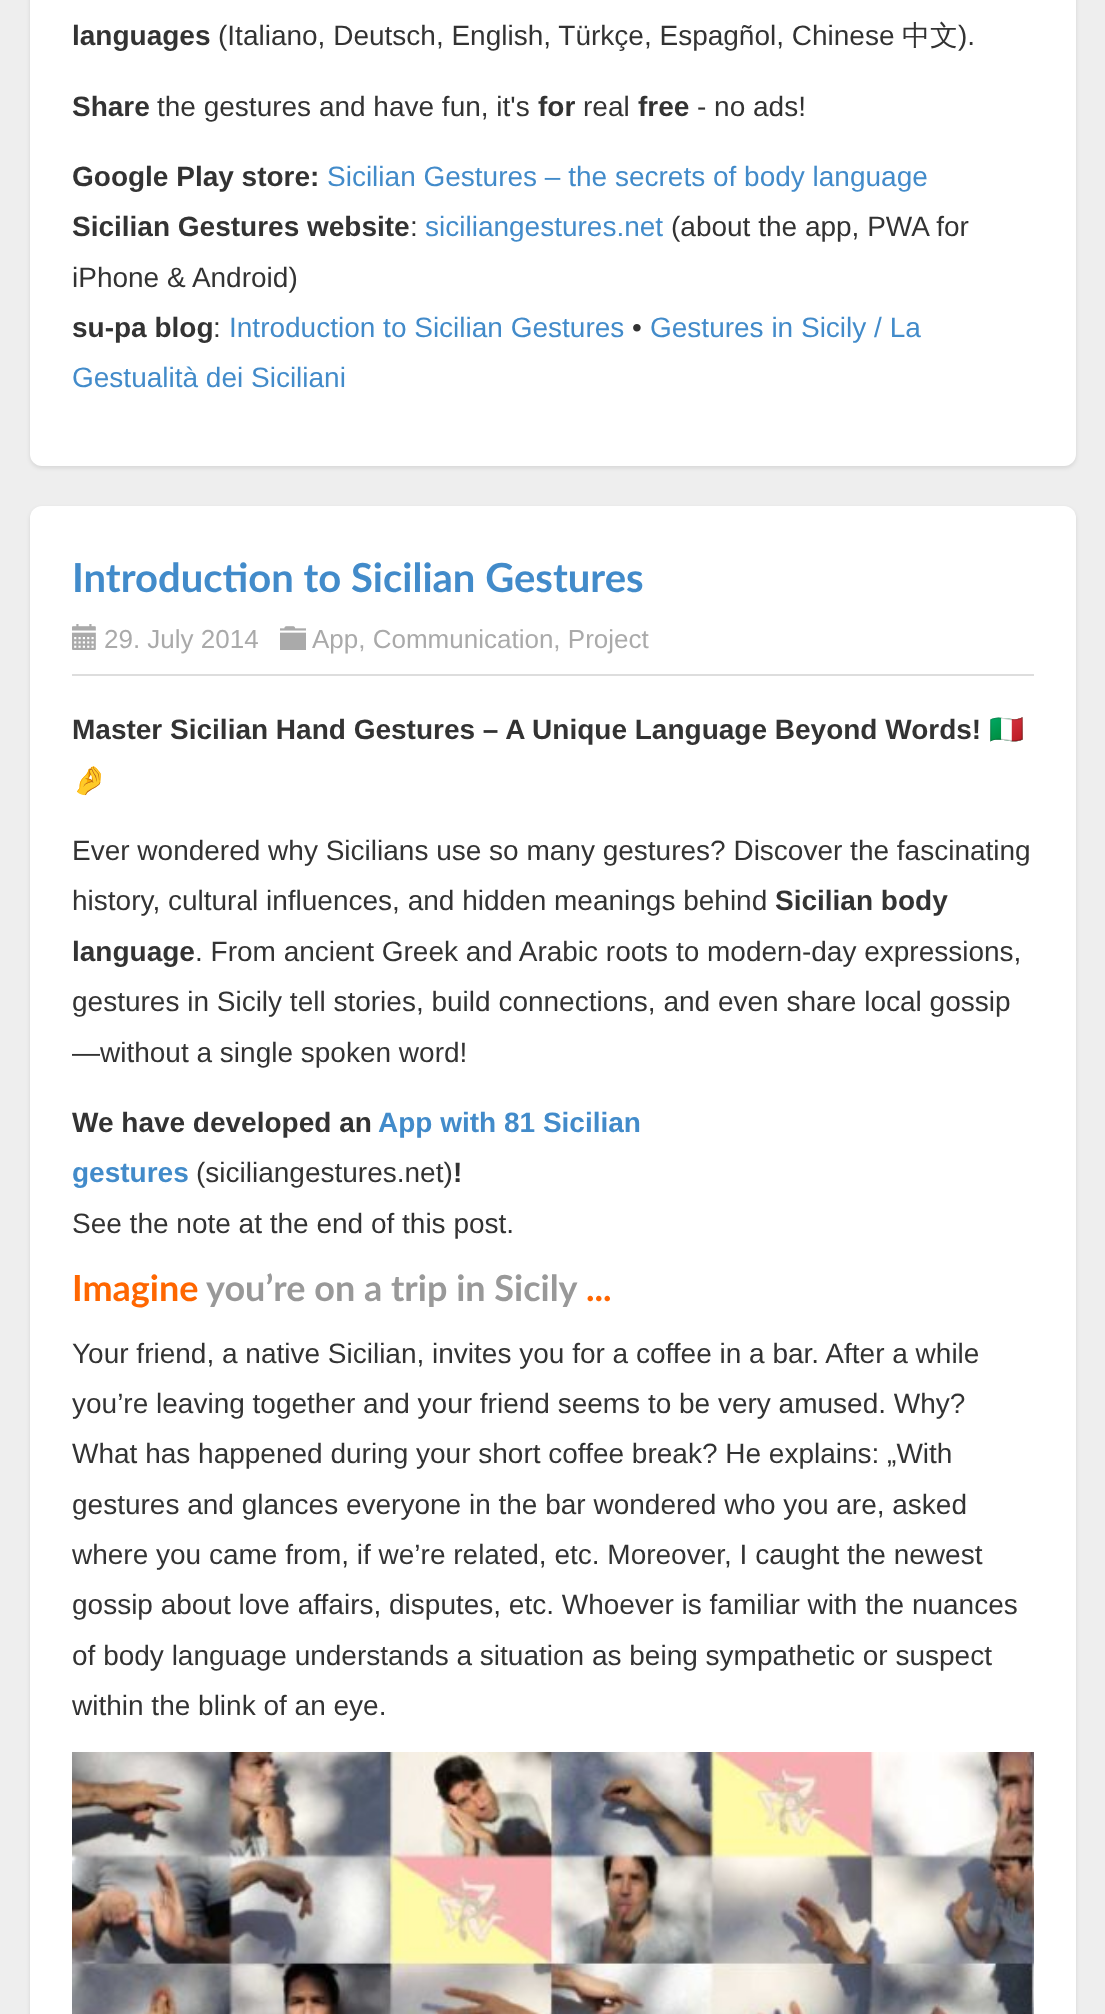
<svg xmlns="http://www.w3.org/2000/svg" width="1105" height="2014">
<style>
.a{font:bold 28px Liberation Sans;fill:#333}
.b{font:28px Liberation Sans;fill:#333}
.c{font:500 28px WenQuanYi Zen Hei;fill:#333}
.d{font:28px Liberation Sans;fill:#428bca}
.e{font:bold 40px Lato;fill:#428bca}
.f{font:26px Liberation Sans;fill:#aaa}
.g{font:28px Noto Color Emoji;fill:#333}
.h{font:bold 28px Liberation Sans;fill:#428bca}
.i{font:bold 36px Lato;fill:#f60}
.j{font:bold 36px Lato;fill:#999}
</style>
<rect width="100%" height="100%" fill="#eee"/>
<rect fill="#0000001a" filter="blur(2px)" x="30" y="-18" width="1046" height="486" rx="12"/>
<rect fill="#fff" x="30" y="-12" width="1046" height="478" rx="12"/>
<rect fill="#0000001a" filter="blur(2px)" x="30" y="508" width="1046" height="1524" rx="12"/>
<rect fill="#fff" x="30" y="506" width="1046" height="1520" rx="12"/>
<path fill="#ddd" d="M72 674h962v2H72z"/>
<image href="1.png" x="72" y="624" width="24" height="26"/>
<image href="2.png" x="280" y="626" width="26" height="24"/>
<image href="3.png" x="72" y="1752" width="962" height="262"/>
<text class="a" x="72" y="45">languages</text>
<text class="b" x="218" y="45">(Italiano, Deutsch, English, Türkçe, Espagñol, Chinese</text>
<text class="c" x="902" y="45">中文</text>
<text class="b" x="958" y="45">).</text>
<text class="a" x="72" y="116">Share</text>
<text class="b" x="157" y="116">the gestures and have fun, it's</text>
<text class="a" x="538" y="116">for</text>
<text class="b" x="583" y="116">real</text>
<text class="a" x="638" y="116">free</text>
<text class="b" x="697" y="116">- no ads!</text>
<text class="a" x="72" y="186">Google Play store:</text>
<text class="d" x="327" y="186">Sicilian Gestures – the secrets of body language</text>
<text class="a" x="72" y="236">Sicilian Gestures website</text>
<text class="b" x="410" y="236">:</text>
<text class="d" x="425" y="236">siciliangestures.net</text>
<text class="b" x="671" y="236">(about the app, PWA for</text>
<text class="b" x="72" y="287">iPhone &amp; Android)</text>
<text class="a" x="72" y="337">su-pa blog</text>
<text class="b" x="213" y="337">:</text>
<text class="d" x="229" y="337">Introduction to Sicilian Gestures</text>
<text class="b" x="632" y="337">•</text>
<text class="d" x="650" y="337">Gestures in Sicily / La</text>
<text class="d" x="72" y="387">Gestualità dei Siciliani</text>
<text class="e" x="72" y="592">Introduction to Sicilian Gestures</text>
<text class="f" x="104" y="648">29. July 2014</text>
<text class="f" x="312" y="648">App, Communication, Project</text>
<text class="a" x="72" y="739">Master Sicilian Hand Gestures – A Unique Language Beyond Words!</text>
<text class="g" x="989" y="739">🇮🇹</text>
<text class="g" x="72" y="790">🤌</text>
<text class="b" x="72" y="860">Ever wondered why Sicilians use so many gestures? Discover the fascinating</text>
<text class="b" x="72" y="910">history, cultural influences, and hidden meanings behind</text>
<text class="a" x="775" y="910">Sicilian body</text>
<text class="a" x="72" y="961">language</text>
<text class="b" x="195" y="961">. From ancient Greek and Arabic roots to modern-day expressions,</text>
<text class="b" x="72" y="1011">gestures in Sicily tell stories, build connections, and even share local gossip</text>
<text class="b" x="72" y="1062">—without a single spoken word!</text>
<text class="a" x="72" y="1132">We have developed an</text>
<text class="h" x="378" y="1132">App with 81 Sicilian</text>
<text class="h" x="72" y="1182">gestures</text>
<text class="b" x="196" y="1182">(siciliangestures.net)</text>
<text class="a" x="453" y="1182">!</text>
<text class="b" x="72" y="1233">See the note at the end of this post.</text>
<text class="i" x="72" y="1301">Imagine</text>
<text class="j" x="206" y="1301">you’re on a trip in Sicily</text>
<text class="i" x="586" y="1301">...</text>
<text class="b" x="72" y="1363">Your friend, a native Sicilian, invites you for a coffee in a bar. After a while</text>
<text class="b" x="72" y="1413">you’re leaving together and your friend seems to be very amused. Why?</text>
<text class="b" x="72" y="1463">What has happened during your short coffee break? He explains: „With</text>
<text class="b" x="72" y="1514">gestures and glances everyone in the bar wondered who you are, asked</text>
<text class="b" x="72" y="1564">where you came from, if we’re related, etc. Moreover, I caught the newest</text>
<text class="b" x="72" y="1614">gossip about love affairs, disputes, etc. Whoever is familiar with the nuances</text>
<text class="b" x="72" y="1665">of body language understands a situation as being sympathetic or suspect</text>
<text class="b" x="72" y="1715">within the blink of an eye.</text>
</svg>
